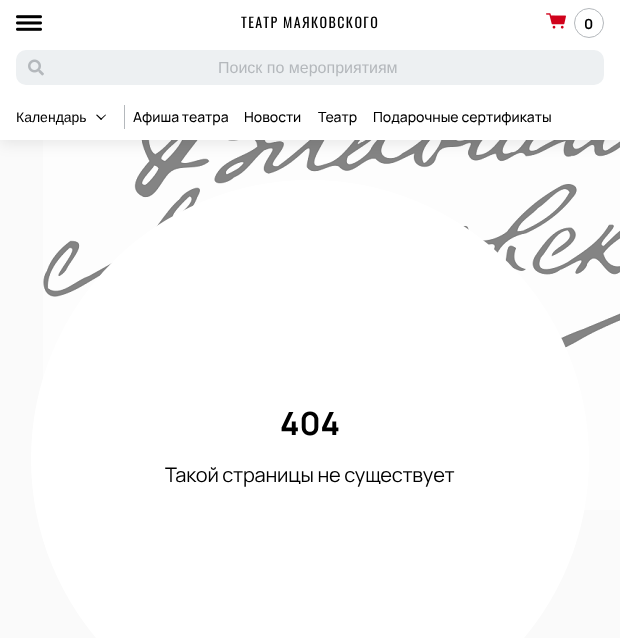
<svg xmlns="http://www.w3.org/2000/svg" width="620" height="638">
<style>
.a{font:14px Oswald;letter-spacing:1.4px;fill:#000}
.b{font:200 14px Manrope;fill:#000}
.c{font:16px Liberation Sans;fill:#b4b8bc}
.d{font:14px Liberation Sans;fill:#000}
.e{font:200 14px 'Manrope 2';fill:#000}
.f{font:200 32px Manrope;fill:#000}
.g{font:200 20px 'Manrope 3';letter-spacing:-0.2px;fill:#000}
</style>
<rect width="100%" height="100%" fill="#fafafa"/>
<image href="4.png" x="43" y="140" width="577" height="370"/>
<path fill="#00000017" filter="blur(7.5px)" d="M0 3h620v140H0z"/>
<path fill="#fff" d="M0 0h620v140H0z"/>
<image href="1.png" x="16" y="15" width="26" height="16"/>
<image href="2.png" x="546" y="13" width="20" height="16"/>
<circle fill="none" stroke="#b4b8bc" cx="589" cy="23" r="14.5"/>
<rect fill="#edf0f2" x="16" y="50" width="588" height="35" rx="10"/>
<image href="3.png" x="28" y="59" width="16" height="17"/>
<path fill="#000" d="M100.5 119l5-4.5l.5 .5l-5 5z"/>
<path fill="#000" d="M96 115l1-.5l5 4.5l-1 1z"/>
<path fill="#b4b8bc" d="M124 105h1v24H124z"/>
<circle fill="#fff" cx="310" cy="459" r="279"/>
<text class="a" x="241" y="28">ТЕАТР МАЯКОВСКОГО</text>
<text class="b" x="584" y="29">0</text>
<text class="c" x="218" y="73">Поиск по мероприятиям</text>
<text class="d" x="16" y="122">Календарь</text>
<text class="e" x="133" y="122">Афиша театра</text>
<text class="e" x="244" y="122">Новости</text>
<text class="e" x="318" y="122">Театр</text>
<text class="e" x="373" y="122">Подарочные сертификаты</text>
<text class="f" x="280" y="435">404</text>
<text class="g" x="165" y="482">Такой страницы не существует</text>
</svg>
